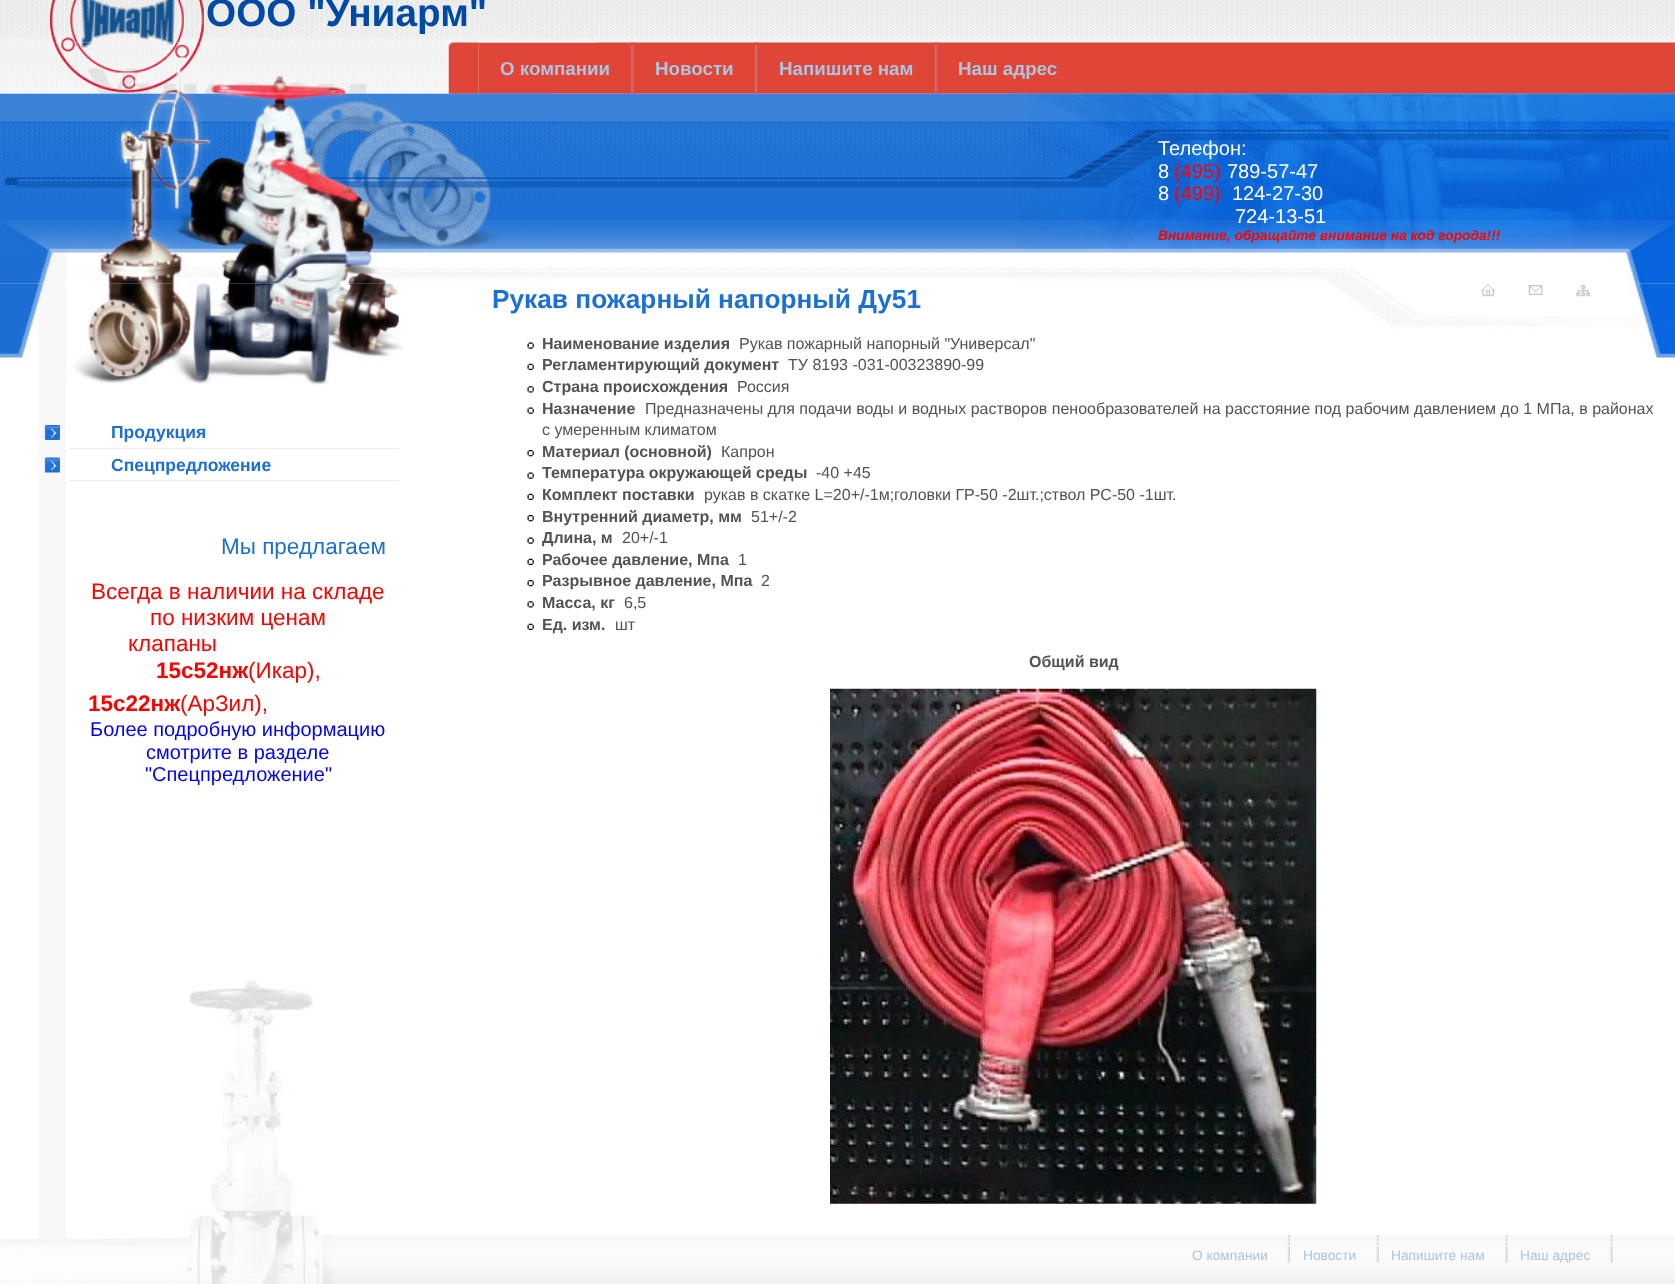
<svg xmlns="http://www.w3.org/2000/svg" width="1675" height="1284">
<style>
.a{font:bold 38.75px Liberation Sans;fill:#0049a4}
.b{font:bold 18.75px Liberation Sans;fill:#abc4e0}
.c{font:20px Liberation Sans;fill:#fff}
.d{font:20px Liberation Sans;fill:#f00}
.e{font:italic bold 13.75px Liberation Sans;fill:#f00}
.f{font:bold 17.5px Liberation Sans;fill:#1c6fd3}
.g{font:22.5px Liberation Sans;fill:#1c6fd3}
.h{font:22.5px Liberation Sans;fill:#f00}
.i{font:bold 22.5px Liberation Sans;fill:#f00}
.j{font:20px Liberation Sans;fill:#00f}
.k{font:bold 26.25px Liberation Sans;fill:#1c6fd3}
.l{font:bold 16px Liberation Sans;fill:#535353}
.m{font:16px Liberation Sans;fill:#535353}
.n{font:13.75px Liberation Sans;fill:#abc4e0}
</style>
<rect width="100%" height="100%" fill="#fff"/>
<image href="1.png" x="0" y="0" width="1675" height="43"/>
<image href="4.png" x="478" y="42" width="1197" height="52"/>
<image href="2.png" x="0" y="0" width="598" height="43"/>
<image href="7.png" x="0" y="93" width="1675" height="185"/>
<image href="3.png" x="0" y="42" width="479" height="52"/>
<image href="5.png" x="631" y="42" width="3" height="51"/>
<image href="6.png" x="755" y="42" width="3" height="51"/>
<image href="6.png" x="935" y="42" width="3" height="51"/>
<image href="8.png" x="0" y="93" width="554" height="191"/>
<image href="18.png" x="1331" y="283" width="344" height="76"/>
<image href="9.png" x="1010" y="93" width="345" height="191"/>
<image href="10.png" x="1355" y="93" width="320" height="191"/>
<path fill="#f8f8f8" d="M39 385h27v850H39z"/>
<image href="11.png" x="1481" y="283" width="14" height="14"/>
<image href="12.png" x="1528" y="285" width="15" height="10"/>
<image href="13.png" x="1576" y="285" width="14" height="12"/>
<image href="14.png" x="189" y="980" width="131" height="255"/>
<image href="15.png" x="0" y="283" width="404" height="102"/>
<image href="16.png" x="44" y="425" width="16" height="15"/>
<path fill="#ededed" d="M69 448h330v1H69z"/>
<image href="17.png" x="44" y="457" width="16" height="16"/>
<path fill="#ededed" d="M69 480h330v1H69z"/>
<image href="19.png" x="527" y="342" width="7" height="7"/>
<image href="20.png" x="527" y="363" width="7" height="7"/>
<image href="21.png" x="527" y="386" width="7" height="7"/>
<image href="19.png" x="527" y="407" width="7" height="7"/>
<image href="22.png" x="527" y="450" width="7" height="7"/>
<image href="19.png" x="527" y="472" width="7" height="7"/>
<image href="20.png" x="527" y="493" width="7" height="7"/>
<image href="22.png" x="527" y="515" width="7" height="7"/>
<image href="19.png" x="527" y="537" width="7" height="7"/>
<image href="20.png" x="527" y="558" width="7" height="7"/>
<image href="22.png" x="527" y="580" width="7" height="7"/>
<image href="21.png" x="527" y="601" width="7" height="7"/>
<image href="20.png" x="527" y="623" width="7" height="7"/>
<image href="23.png" x="830" y="688" width="487" height="516"/>
<image href="24.png" x="333" y="1235" width="1342" height="49"/>
<image href="25.png" x="0" y="1235" width="333" height="49"/>
<image href="26.png" x="1287" y="1235" width="3" height="28"/>
<image href="27.png" x="1376" y="1235" width="3" height="28"/>
<image href="28.png" x="1505" y="1235" width="3" height="28"/>
<image href="28.png" x="1610" y="1235" width="3" height="28"/>
<text class="a" x="206" y="26">ООО "Униарм"</text>
<text class="b" x="500" y="75">О компании</text>
<text class="b" x="655" y="75">Новости</text>
<text class="b" x="779" y="75">Напишите нам</text>
<text class="b" x="958" y="75">Наш адрес</text>
<text class="c" x="1158" y="155">Телефон:</text>
<text class="c" x="1158" y="178">8</text>
<text class="d" x="1174" y="178">(495)</text>
<text class="c" x="1227" y="178">789-57-47</text>
<text class="c" x="1158" y="200">8</text>
<text class="d" x="1174" y="200">(499)</text>
<text class="c" x="1232" y="200">124-27-30</text>
<text class="c" x="1235" y="223">724-13-51</text>
<text class="e" x="1158" y="240">Внимание, обращайте внимание на код города!!!</text>
<text class="f" x="111" y="438">Продукция</text>
<text class="f" x="111" y="471">Спецпредложение</text>
<text class="g" x="221" y="554">Мы предлагаем</text>
<text class="h" x="91" y="599">Всегда в наличии на складе</text>
<text class="h" x="150" y="625">по низким ценам</text>
<text class="h" x="128" y="651">клапаны</text>
<text class="i" x="156" y="678">15с52нж</text>
<text class="h" x="248" y="678">(Икар),</text>
<text class="i" x="88" y="711">15с22нж</text>
<text class="h" x="180" y="711">(АрЗил),</text>
<text class="j" x="90" y="736">Более подробную информацию</text>
<text class="j" x="146" y="759">смотрите в разделе</text>
<text class="j" x="145" y="781">"Спецпредложение"</text>
<text class="k" x="492" y="308">Рукав пожарный напорный Ду51</text>
<text class="l" x="542" y="349">Наименование изделия</text>
<text class="m" x="739" y="349">Рукав пожарный напорный "Универсал"</text>
<text class="l" x="542" y="370">Регламентирующий документ</text>
<text class="m" x="788" y="370">ТУ 8193 -031-00323890-99</text>
<text class="l" x="542" y="392">Страна происхождения</text>
<text class="m" x="737" y="392">Россия</text>
<text class="l" x="542" y="414">Назначение</text>
<text class="m" x="645" y="414">Предназначены для подачи воды и водных растворов пенообразователей на расстояние под рабочим давлением до 1 МПа, в районах</text>
<text class="m" x="542" y="435">с умеренным климатом</text>
<text class="l" x="542" y="457">Материал (основной)</text>
<text class="m" x="721" y="457">Капрон</text>
<text class="l" x="542" y="478">Температура окружающей среды</text>
<text class="m" x="816" y="478">-40 +45</text>
<text class="l" x="542" y="500">Комплект поставки</text>
<text class="m" x="704" y="500">рукав в скатке L=20+/-1м;головки ГР-50 -2шт.;ствол РС-50 -1шт.</text>
<text class="l" x="542" y="522">Внутренний диаметр, мм</text>
<text class="m" x="751" y="522">51+/-2</text>
<text class="l" x="542" y="543">Длина, м</text>
<text class="m" x="622" y="543">20+/-1</text>
<text class="l" x="542" y="565">Рабочее давление, Мпа</text>
<text class="m" x="738" y="565">1</text>
<text class="l" x="542" y="586">Разрывное давление, Мпа</text>
<text class="m" x="761" y="586">2</text>
<text class="l" x="542" y="608">Масса, кг</text>
<text class="m" x="624" y="608">6,5</text>
<text class="l" x="542" y="630">Ед. изм.</text>
<text class="m" x="615" y="630">шт</text>
<text class="l" x="1029" y="667">Общий вид</text>
<text class="n" x="1192" y="1260">О компании</text>
<text class="n" x="1303" y="1260">Новости</text>
<text class="n" x="1391" y="1260">Напишите нам</text>
<text class="n" x="1520" y="1260">Наш адрес</text>
</svg>
